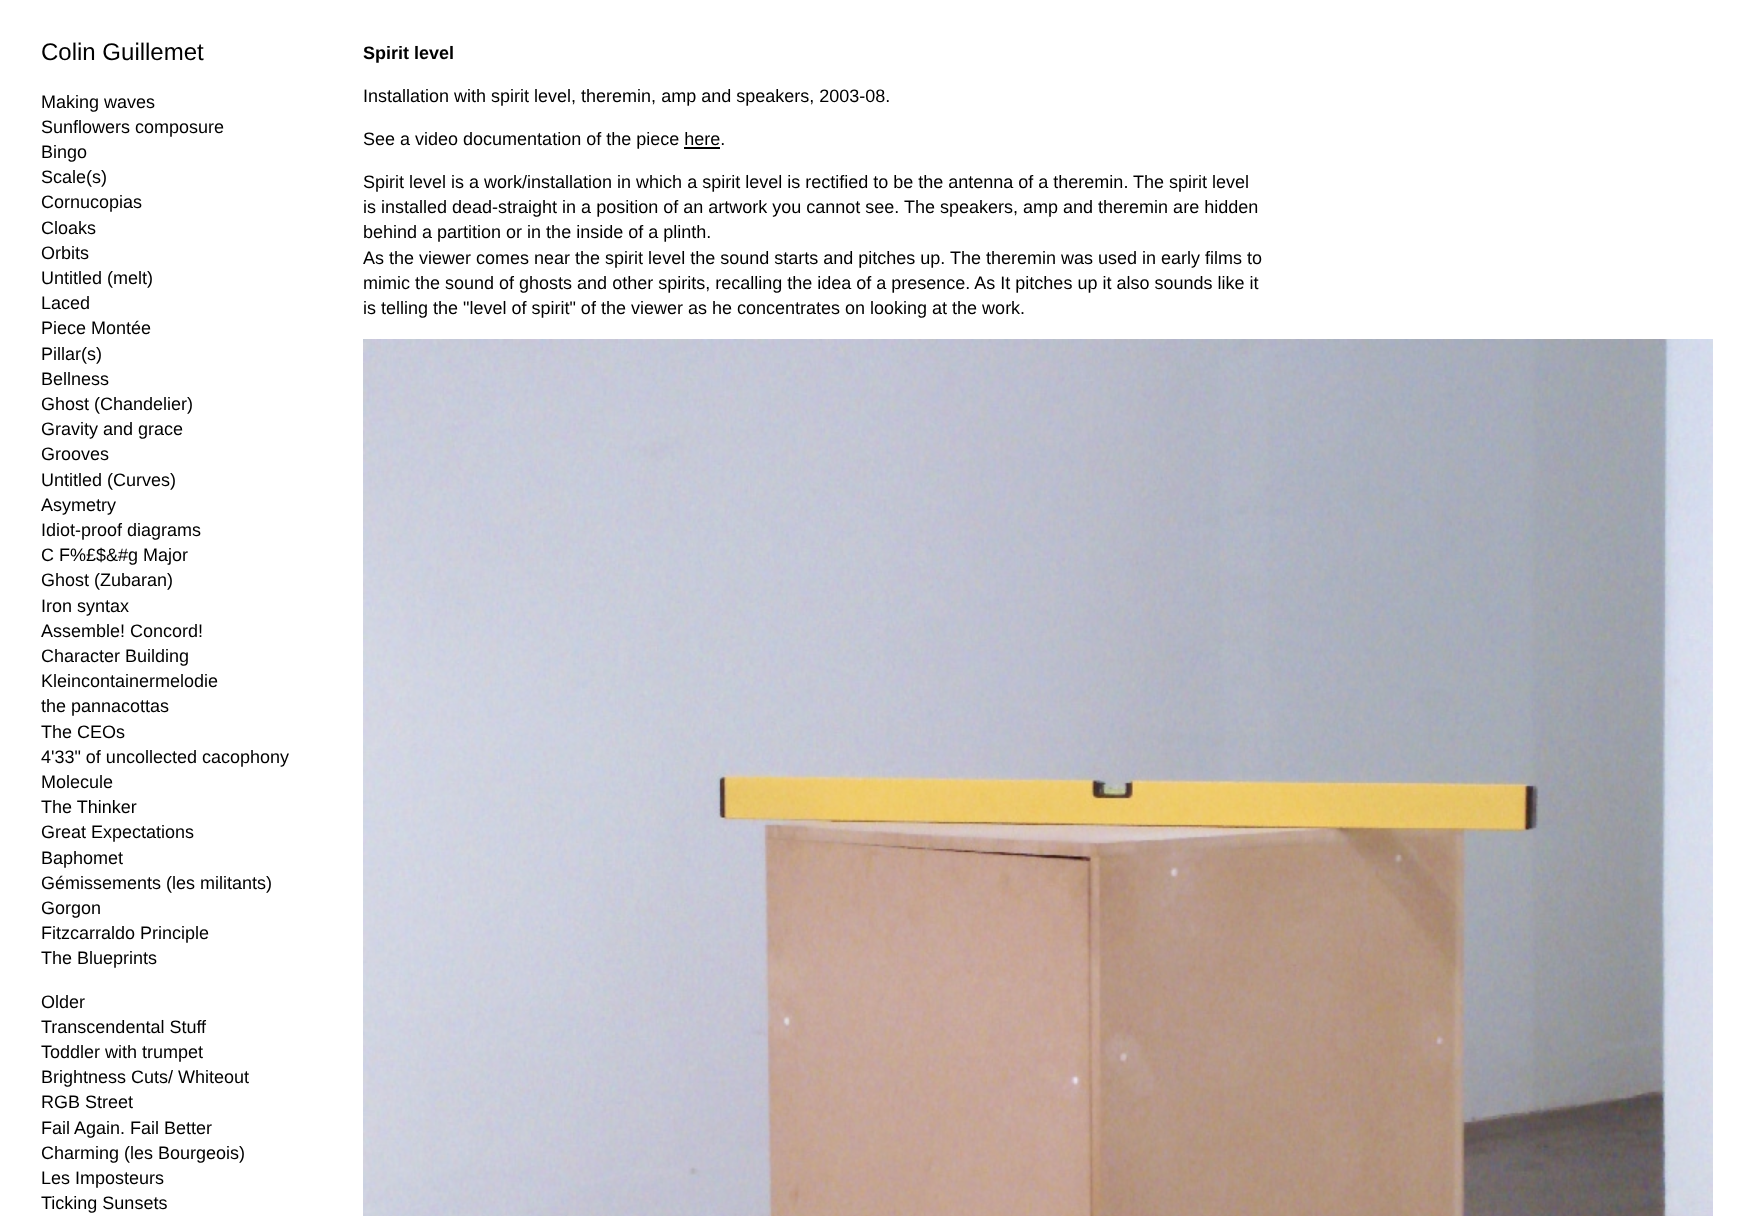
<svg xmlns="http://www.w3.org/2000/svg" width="1758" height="1216">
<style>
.a{font:24px Liberation Sans;fill:#000}
.b{font:18px Liberation Sans;fill:#000}
.c{font:bold 18px Liberation Sans;fill:#000}
</style>
<rect width="100%" height="100%" fill="#fff"/>
<path fill="#000" d="M684 147h36v2H684z"/>
<image href="1.png" x="363" y="339" width="1350" height="877"/>
<text class="a" x="41" y="60">Colin Guillemet</text>
<text class="b" x="41" y="108">Making waves</text>
<text class="b" x="41" y="133">Sunflowers composure</text>
<text class="b" x="41" y="158">Bingo</text>
<text class="b" x="41" y="183">Scale(s)</text>
<text class="b" x="41" y="208">Cornucopias</text>
<text class="b" x="41" y="234">Cloaks</text>
<text class="b" x="41" y="259">Orbits</text>
<text class="b" x="41" y="284">Untitled (melt)</text>
<text class="b" x="41" y="309">Laced</text>
<text class="b" x="41" y="334">Piece Montée</text>
<text class="b" x="41" y="360">Pillar(s)</text>
<text class="b" x="41" y="385">Bellness</text>
<text class="b" x="41" y="410">Ghost (Chandelier)</text>
<text class="b" x="41" y="435">Gravity and grace</text>
<text class="b" x="41" y="460">Grooves</text>
<text class="b" x="41" y="486">Untitled (Curves)</text>
<text class="b" x="41" y="511">Asymetry</text>
<text class="b" x="41" y="536">Idiot-proof diagrams</text>
<text class="b" x="41" y="561">C F%£$&amp;#g Major</text>
<text class="b" x="41" y="586">Ghost (Zubaran)</text>
<text class="b" x="41" y="612">Iron syntax</text>
<text class="b" x="41" y="637">Assemble! Concord!</text>
<text class="b" x="41" y="662">Character Building</text>
<text class="b" x="41" y="687">Kleincontainermelodie</text>
<text class="b" x="41" y="712">the pannacottas</text>
<text class="b" x="41" y="738">The CEOs</text>
<text class="b" x="41" y="763">4'33" of uncollected cacophony</text>
<text class="b" x="41" y="788">Molecule</text>
<text class="b" x="41" y="813">The Thinker</text>
<text class="b" x="41" y="838">Great Expectations</text>
<text class="b" x="41" y="864">Baphomet</text>
<text class="b" x="41" y="889">Gémissements (les militants)</text>
<text class="b" x="41" y="914">Gorgon</text>
<text class="b" x="41" y="939">Fitzcarraldo Principle</text>
<text class="b" x="41" y="964">The Blueprints</text>
<text class="b" x="41" y="1008">Older</text>
<text class="b" x="41" y="1033">Transcendental Stuff</text>
<text class="b" x="41" y="1058">Toddler with trumpet</text>
<text class="b" x="41" y="1083">Brightness Cuts/ Whiteout</text>
<text class="b" x="41" y="1108">RGB Street</text>
<text class="b" x="41" y="1134">Fail Again. Fail Better</text>
<text class="b" x="41" y="1159">Charming (les Bourgeois)</text>
<text class="b" x="41" y="1184">Les Imposteurs</text>
<text class="b" x="41" y="1209">Ticking Sunsets</text>
<text class="c" x="363" y="59">Spirit level</text>
<text class="b" x="363" y="102">Installation with spirit level, theremin, amp and speakers, 2003-08.</text>
<text class="b" x="363" y="145">See a video documentation of the piece here.</text>
<text class="b" x="363" y="188">Spirit level is a work/installation in which a spirit level is rectified to be the antenna of a theremin. The spirit level</text>
<text class="b" x="363" y="213">is installed dead-straight in a position of an artwork you cannot see. The speakers, amp and theremin are hidden</text>
<text class="b" x="363" y="238">behind a partition or in the inside of a plinth.</text>
<text class="b" x="363" y="264">As the viewer comes near the spirit level the sound starts and pitches up. The theremin was used in early films to</text>
<text class="b" x="363" y="289">mimic the sound of ghosts and other spirits, recalling the idea of a presence. As It pitches up it also sounds like it</text>
<text class="b" x="363" y="314">is telling the "level of spirit" of the viewer as he concentrates on looking at the work.</text>
</svg>
